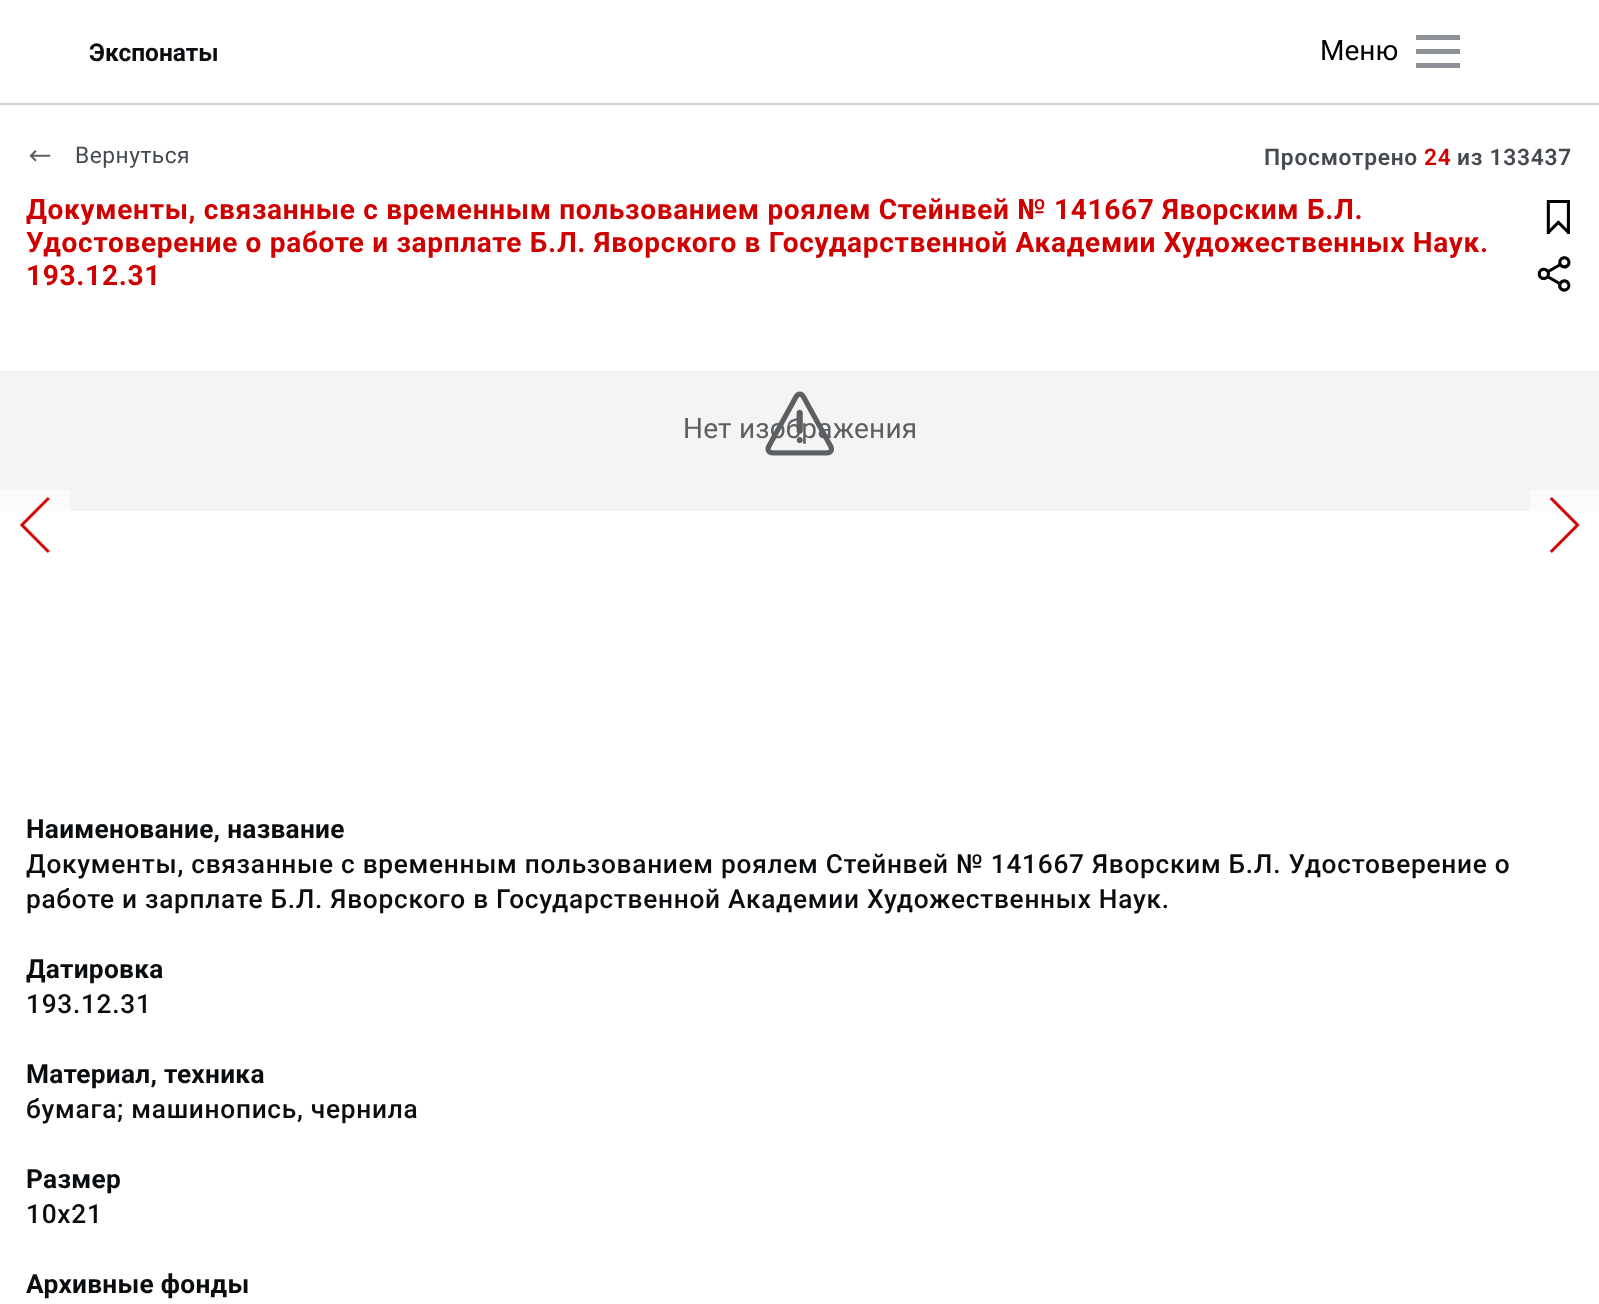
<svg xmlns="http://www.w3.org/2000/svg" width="1599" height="1304">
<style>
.a{font:bold 24.5px Roboto;fill:#0a0d10}
.b{font:28px Roboto;fill:#000}
.c{font:22.75px Roboto;letter-spacing:0.5px;fill:#444a50}
.d{font:600 22.75px Roboto;letter-spacing:0.75px;fill:#444a50}
.e{font:600 22.75px Roboto;letter-spacing:0.75px;fill:#cf0000}
.f{font:bold 28px Roboto;letter-spacing:0.7px;fill:#cf0000}
.g{font:28px Roboto;letter-spacing:0.2px;fill:#5c5f62}
.h{font:bold 26.25px Roboto;letter-spacing:0.3px;fill:#0a0d10}
.i{font:500 26.25px Roboto;letter-spacing:0.73px;fill:#0a0d10}
</style>
<rect width="100%" height="100%" fill="#fff"/>
<path fill="#d3d3d3" d="M0 103h1599v2H0z"/>
<path fill="#8e9195" d="M1416 35h44v5H1416z"/>
<path fill="#8e9195" d="M1416 49h44v5H1416z"/>
<path fill="#8e9195" d="M1416 63h44v5H1416z"/>
<image href="1.png" x="29" y="150" width="22" height="12"/>
<path fill="#f4f4f5" d="M0 371h1599v140H0z"/>
<path fill="#fbfbfb" d="M1530 490h69v21H1530z"/>
<path fill="#fbfbfb" d="M0 490h70v21H0z"/>
<image href="3.png" x="1546" y="200" width="24" height="34"/>
<image href="4.png" x="1537" y="256" width="34" height="36"/>
<image href="5.png" x="20" y="497" width="31" height="56"/>
<image href="6.png" x="1549" y="497" width="31" height="56"/>
<text class="a" x="89" y="61">Экспонаты</text>
<text class="b" x="1320" y="60">Меню</text>
<text class="c" x="75" y="163">Вернуться</text>
<text class="d" x="1264" y="165">Просмотрено</text>
<text class="e" x="1424" y="165">24</text>
<text class="d" x="1457" y="165">из 133437</text>
<text class="f" x="26" y="219">Документы, связанные с временным пользованием роялем Стейнвей № 141667 Яворским Б.Л.</text>
<text class="f" x="26" y="252">Удостоверение о работе и зарплате Б.Л. Яворского в Государственной Академии Художественных Наук.</text>
<text class="f" x="26" y="285">193.12.31</text>
<text class="g" x="683" y="438">Нет изображения</text>
<image href="2.png" x="765" y="391" width="69" height="65"/>
<text class="h" x="26" y="838">Наименование, название</text>
<text class="i" x="26" y="873">Документы, связанные с временным пользованием роялем Стейнвей № 141667 Яворским Б.Л. Удостоверение о</text>
<text class="i" x="26" y="908">работе и зарплате Б.Л. Яворского в Государственной Академии Художественных Наук.</text>
<text class="h" x="26" y="978">Датировка</text>
<text class="i" x="26" y="1013">193.12.31</text>
<text class="h" x="26" y="1083">Материал, техника</text>
<text class="i" x="26" y="1118">бумага; машинопись, чернила</text>
<text class="h" x="26" y="1188">Размер</text>
<text class="i" x="26" y="1223">10х21</text>
<text class="h" x="26" y="1293">Архивные фонды</text>
</svg>
